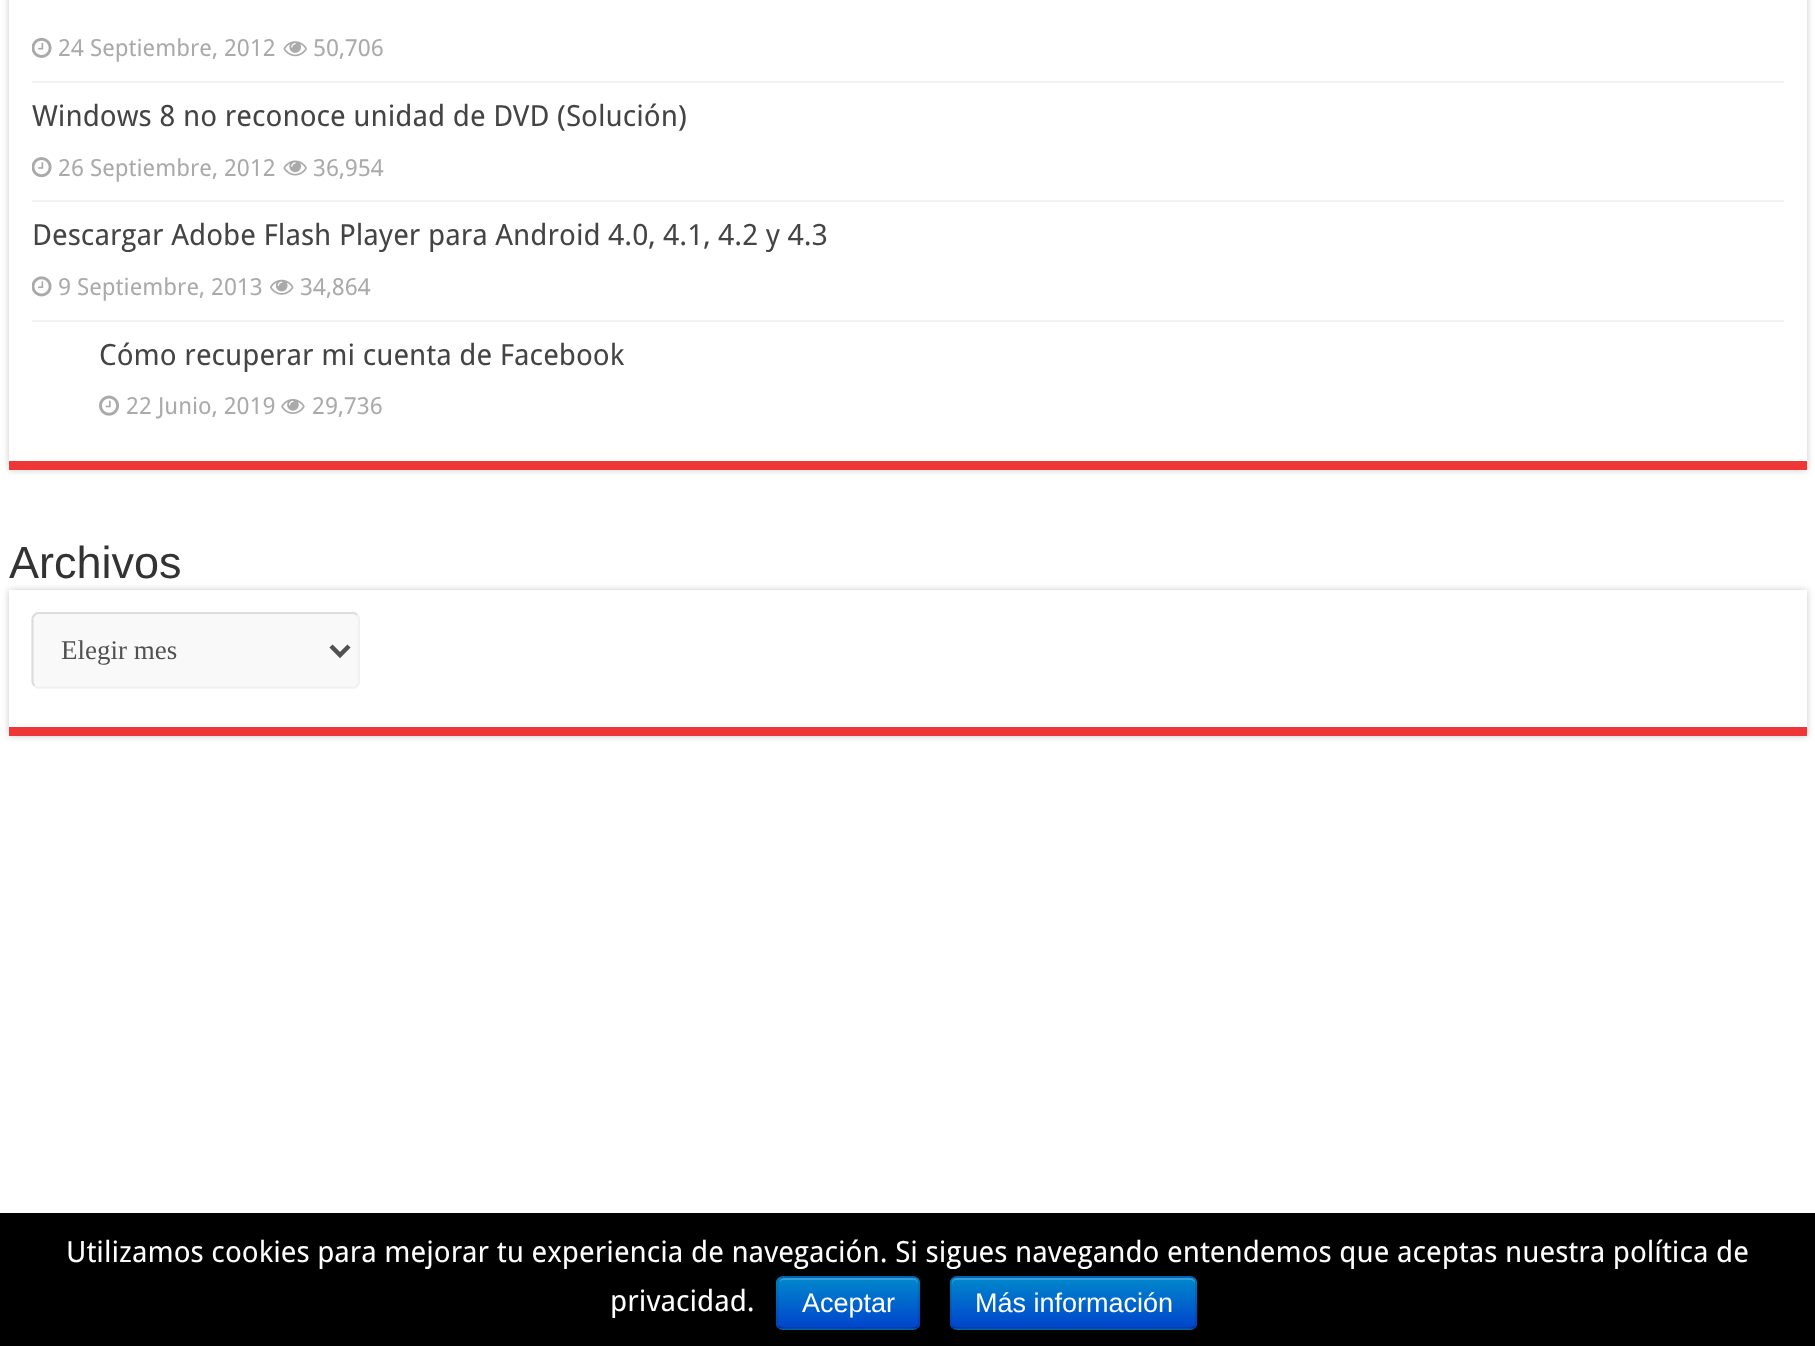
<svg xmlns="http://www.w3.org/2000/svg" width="1815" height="1346">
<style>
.a{font:23.5px Droid Sans;fill:#aaa}
.b{font:29.25px Droid Sans;fill:#444}
.c{font:45px Liberation Sans;fill:#333}
.d{font:27px Liberation Serif;fill:#515151}
.e{font:29.25px Droid Sans;fill:#fff}
.f{font:27px Liberation Sans;fill:#fff}
</style>
<defs>
<clipPath id="clip1"><rect x="776" y="1276" width="144" height="54" rx="7"/></clipPath>
<linearGradient id="g1" gradientUnits="userSpaceOnUse" x1="848" y1="1278" x2="848" y2="1328"><stop offset="0" stop-color="#08c"/><stop offset="1" stop-color="#04c"/></linearGradient>
<clipPath id="clip2"><rect x="950" y="1276" width="247" height="54" rx="7"/></clipPath>
<linearGradient id="g2" gradientUnits="userSpaceOnUse" x1="1073" y1="1278" x2="1073" y2="1328"><stop offset="0" stop-color="#08c"/><stop offset="1" stop-color="#04c"/></linearGradient>
</defs>
<rect width="100%" height="100%" fill="#fff"/>
<path fill="#cacaca" filter="blur(3.5px)" d="M9 -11h1798v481H9z"/>
<path fill="#fff" d="M9 0h1798v461H9z"/>
<path fill="#ef3636" d="M9 461h1798v9H9z"/>
<path fill="#f2f2f2" d="M32 81h1752v2H32z"/>
<image href="1.png" x="32" y="37" width="20" height="21"/>
<image href="2.png" x="283" y="41" width="24" height="16"/>
<path fill="#f2f2f2" d="M32 200h1752v2H32z"/>
<image href="3.png" x="32" y="157" width="20" height="21"/>
<image href="4.png" x="283" y="160" width="24" height="16"/>
<path fill="#f2f2f2" d="M32 320h1752v2H32z"/>
<image href="5.png" x="32" y="276" width="20" height="21"/>
<image href="6.png" x="270" y="279" width="24" height="16"/>
<image href="7.png" x="99" y="395" width="20" height="21"/>
<image href="8.png" x="281" y="399" width="24" height="15"/>
<path fill="#cacaca" filter="blur(3.5px)" d="M9 590h1798v146H9z"/>
<path fill="#fff" d="M9 590h1798v137H9z"/>
<path fill="#ef3636" d="M9 727h1798v9H9z"/>
<rect fill="#f9f9f9" x="32" y="612" width="328" height="77" rx="7"/>
<path fill="none" stroke="#f1f1f1" stroke-width="2.2" d="M357 615c1.5 1 2 2.5 2 4v63c0 1-.5 2.5-2 3.5c-1 1.5-2.5 2-4 2h-315c-1 0-2.5-.5-3.5-2"/>
<path fill="none" stroke="#ddd" stroke-width="2.2" d="M34.5 685.5c-1.5-1-2-2.5-2-3.5v-63c0-1.5 .5-3 2-4c1-1.5 2.5-2 3.5-2h315c1.5 0 3 .5 4 2"/>
<path fill="none" stroke="#515151" stroke-width="4.5" d="M331 646l9 9l9-9"/>
<path fill="#000" d="M0 1213h1815v133H0z"/>
<rect fill="#006dcc" x="776" y="1276" width="144" height="54" rx="7"/>
<g clip-path="url(#clip1)">
<path fill="url(#g1)" d="M776 1278h144v50H776z"/>
</g>
<path fill="#ffffff33" d="M783 1280h131c2 0 4 2 4 5v-2c0-3-2-5-5-5h-129c-2 0-4 2-5 4c1-1 3-2 4-2z"/>
<path fill="none" stroke="#00000040" stroke-width="2.2" d="M917.5 1327l-3.5 1.5h-131.5l-3.5-1.5"/>
<path fill="none" stroke="#0000001a" stroke-width="2.2" d="M779 1327c-2.5-2.5-1.5-7.5-1.5-11v-13c0-30.5-4.5-26 27.5-26h87c31.5 0 27-4.5 27 26v13c0 3.5 1 8.5-1.5 11"/>
<rect fill="#006dcc" x="950" y="1276" width="247" height="54" rx="7"/>
<g clip-path="url(#clip2)">
<path fill="url(#g2)" d="M950 1278h247v50H950z"/>
</g>
<path fill="#ffffff33" d="M956 1280h234c3 0 5 2 5 5c0-3 0-6-4-7h-235c-4 1-4 4-4 7c0-3 2-5 4-5z"/>
<path fill="none" stroke="#00000040" stroke-width="2.2" d="M1194 1327c-1 1-2.5 1.5-4 1.5h-234c-1 0-2.5-.5-3.5-1.5"/>
<path fill="none" stroke="#0000001a" stroke-width="2.2" d="M952.5 1327c-1.5-1-2-2.5-2-4v-40.5c0-1.5 .5-3 2-4c1-1 2.5-1.5 3.5-1.5h234c1.5 0 3 .5 4 1.5c1.5 1 2 2.5 2 4v40.5c0 1.5-.5 3-2 4"/>
<text class="a" x="58" y="56">24 Septiembre, 2012</text>
<text class="a" x="313" y="56">50,706</text>
<text class="b" x="32" y="126">Windows 8 no reconoce unidad de DVD (Solución)</text>
<text class="a" x="58" y="176">26 Septiembre, 2012</text>
<text class="a" x="313" y="176">36,954</text>
<text class="b" x="32" y="245">Descargar Adobe Flash Player para Android 4.0, 4.1, 4.2 y 4.3</text>
<text class="a" x="58" y="295">9 Septiembre, 2013</text>
<text class="a" x="300" y="295">34,864</text>
<text class="b" x="99" y="365">Cómo recuperar mi cuenta de Facebook</text>
<text class="a" x="126" y="414">22 Junio, 2019</text>
<text class="a" x="312" y="414">29,736</text>
<text class="c" x="9" y="578">Archivos</text>
<text class="d" x="61" y="659">Elegir mes</text>
<text class="e" x="66" y="1262">Utilizamos cookies para mejorar tu experiencia de navegación. Si sigues navegando entendemos que aceptas nuestra política de</text>
<text class="e" x="610" y="1311">privacidad.</text>
<text class="f" x="802" y="1312">Aceptar</text>
<text class="f" x="975" y="1312">Más información</text>
</svg>
